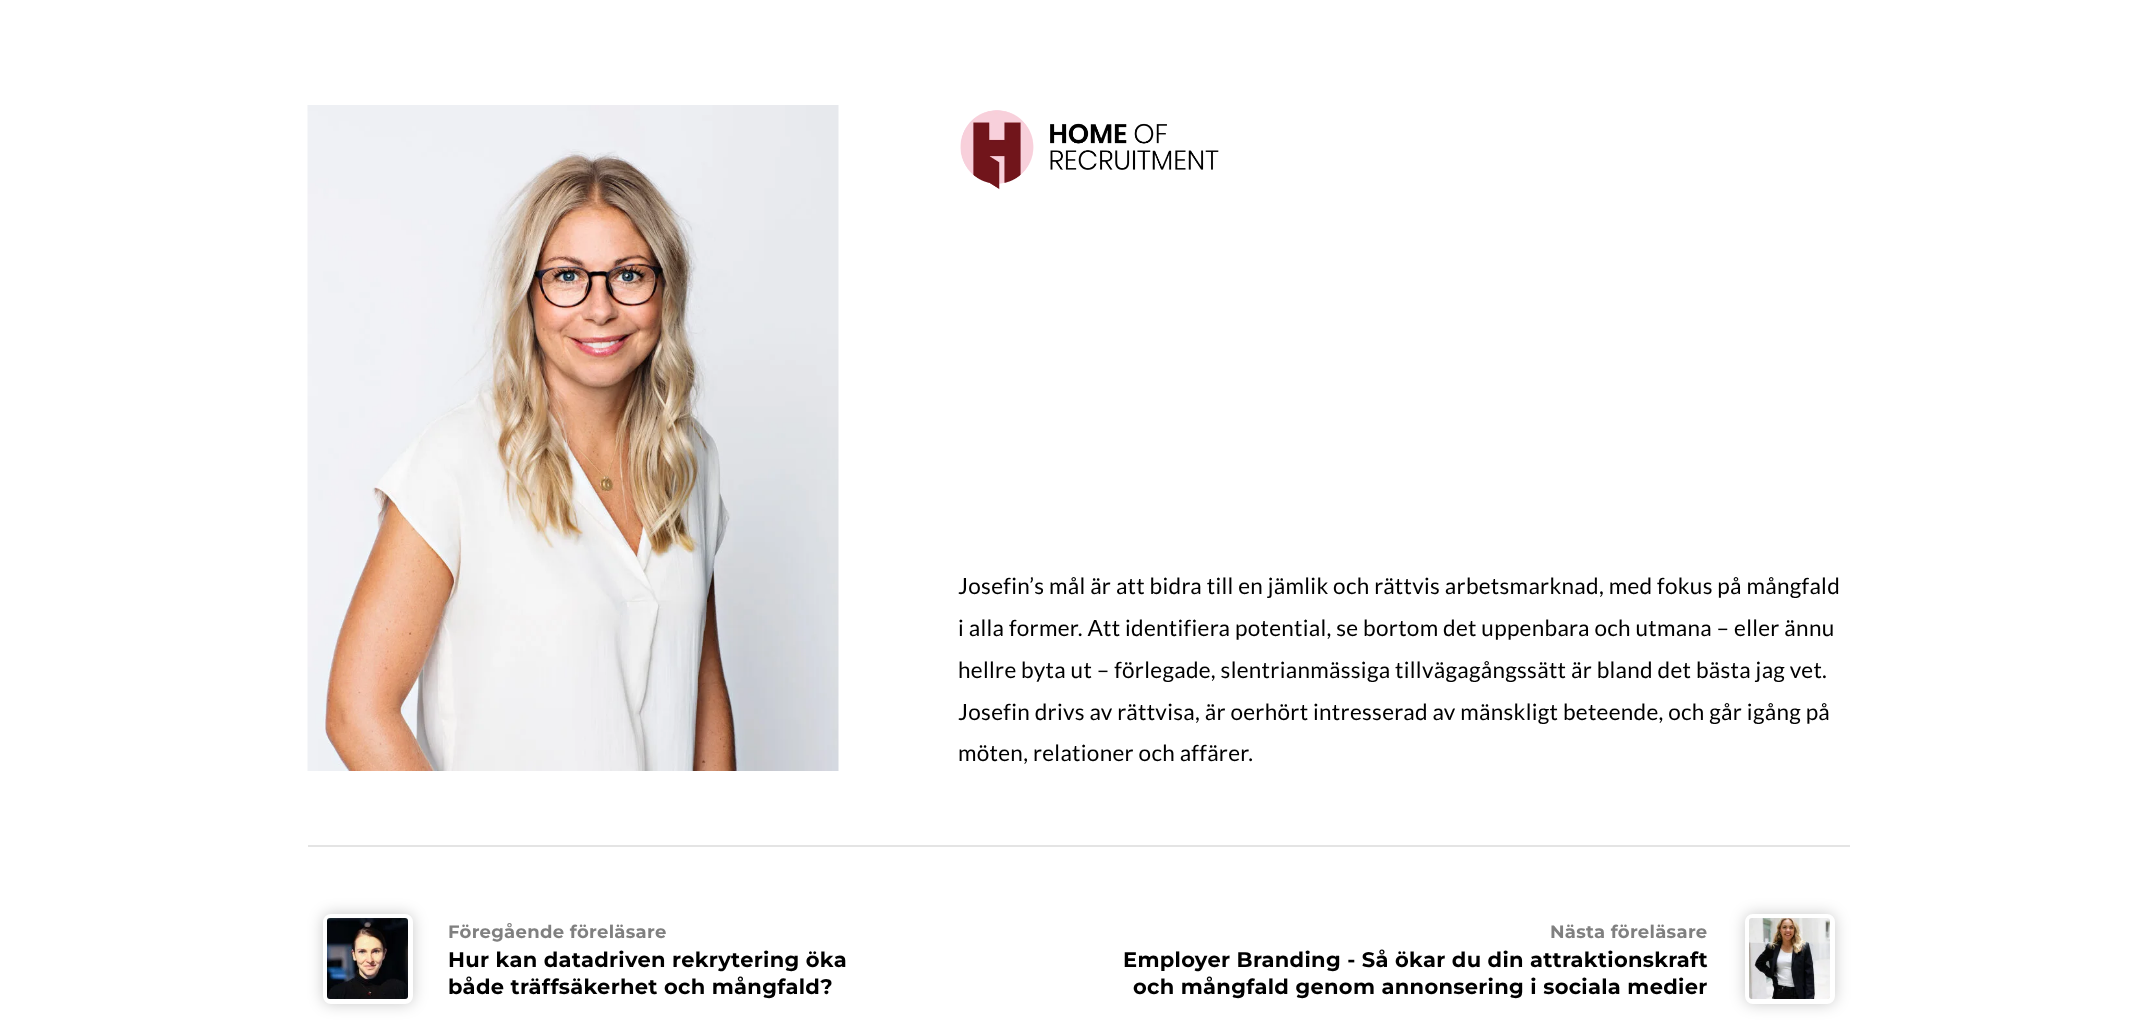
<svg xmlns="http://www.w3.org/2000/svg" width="2155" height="1036">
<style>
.a{font:22.5px Lato;letter-spacing:0.3px;fill:#000}
.b{font:bold 18px Montserrat;letter-spacing:0.3px;fill:#808080}
.c{font:bold 21px Montserrat;letter-spacing:0.3px;fill:#000}
</style>
<rect width="100%" height="100%" fill="#fff"/>
<image href="1.png" x="307" y="105" width="532" height="666"/>
<image href="2.png" x="960" y="110" width="259" height="80"/>
<path fill="#e4e4e4" d="M308 845h1542v2H308z"/>
<rect fill="#00000036" filter="blur(7.5px)" x="323" y="914" width="90" height="90" rx="8"/>
<rect fill="none" stroke="#fff" stroke-width="5" x="325.5" y="916.5" width="85" height="85" rx="5.5"/>
<image href="3.png" x="327" y="918" width="81" height="81"/>
<rect fill="#00000036" filter="blur(7.5px)" x="1745" y="914" width="90" height="90" rx="8"/>
<rect fill="none" stroke="#fff" stroke-width="5" x="1747.5" y="916.5" width="85" height="85" rx="5.5"/>
<image href="4.png" x="1749" y="918" width="81" height="81"/>
<text class="a" x="958" y="594">Josefin’s mål är att bidra till en jämlik och rättvis arbetsmarknad, med fokus på mångfald</text>
<text class="a" x="958" y="636">i alla former. Att identifiera potential, se bortom det uppenbara och utmana – eller ännu</text>
<text class="a" x="958" y="678">hellre byta ut – förlegade, slentrianmässiga tillvägagångssätt är bland det bästa jag vet.</text>
<text class="a" x="958" y="720">Josefin drivs av rättvisa, är oerhört intresserad av mänskligt beteende, och går igång på</text>
<text class="a" x="958" y="761">möten, relationer och affärer.</text>
<text class="b" x="448" y="938">Föregående föreläsare</text>
<text class="c" x="448" y="967">Hur kan datadriven rekrytering öka</text>
<text class="c" x="448" y="994">både träffsäkerhet och mångfald?</text>
<text class="b" x="1550" y="938">Nästa föreläsare</text>
<text class="c" x="1123" y="967">Employer Branding - Så ökar du din attraktionskraft</text>
<text class="c" x="1133" y="994">och mångfald genom annonsering i sociala medier</text>
</svg>
